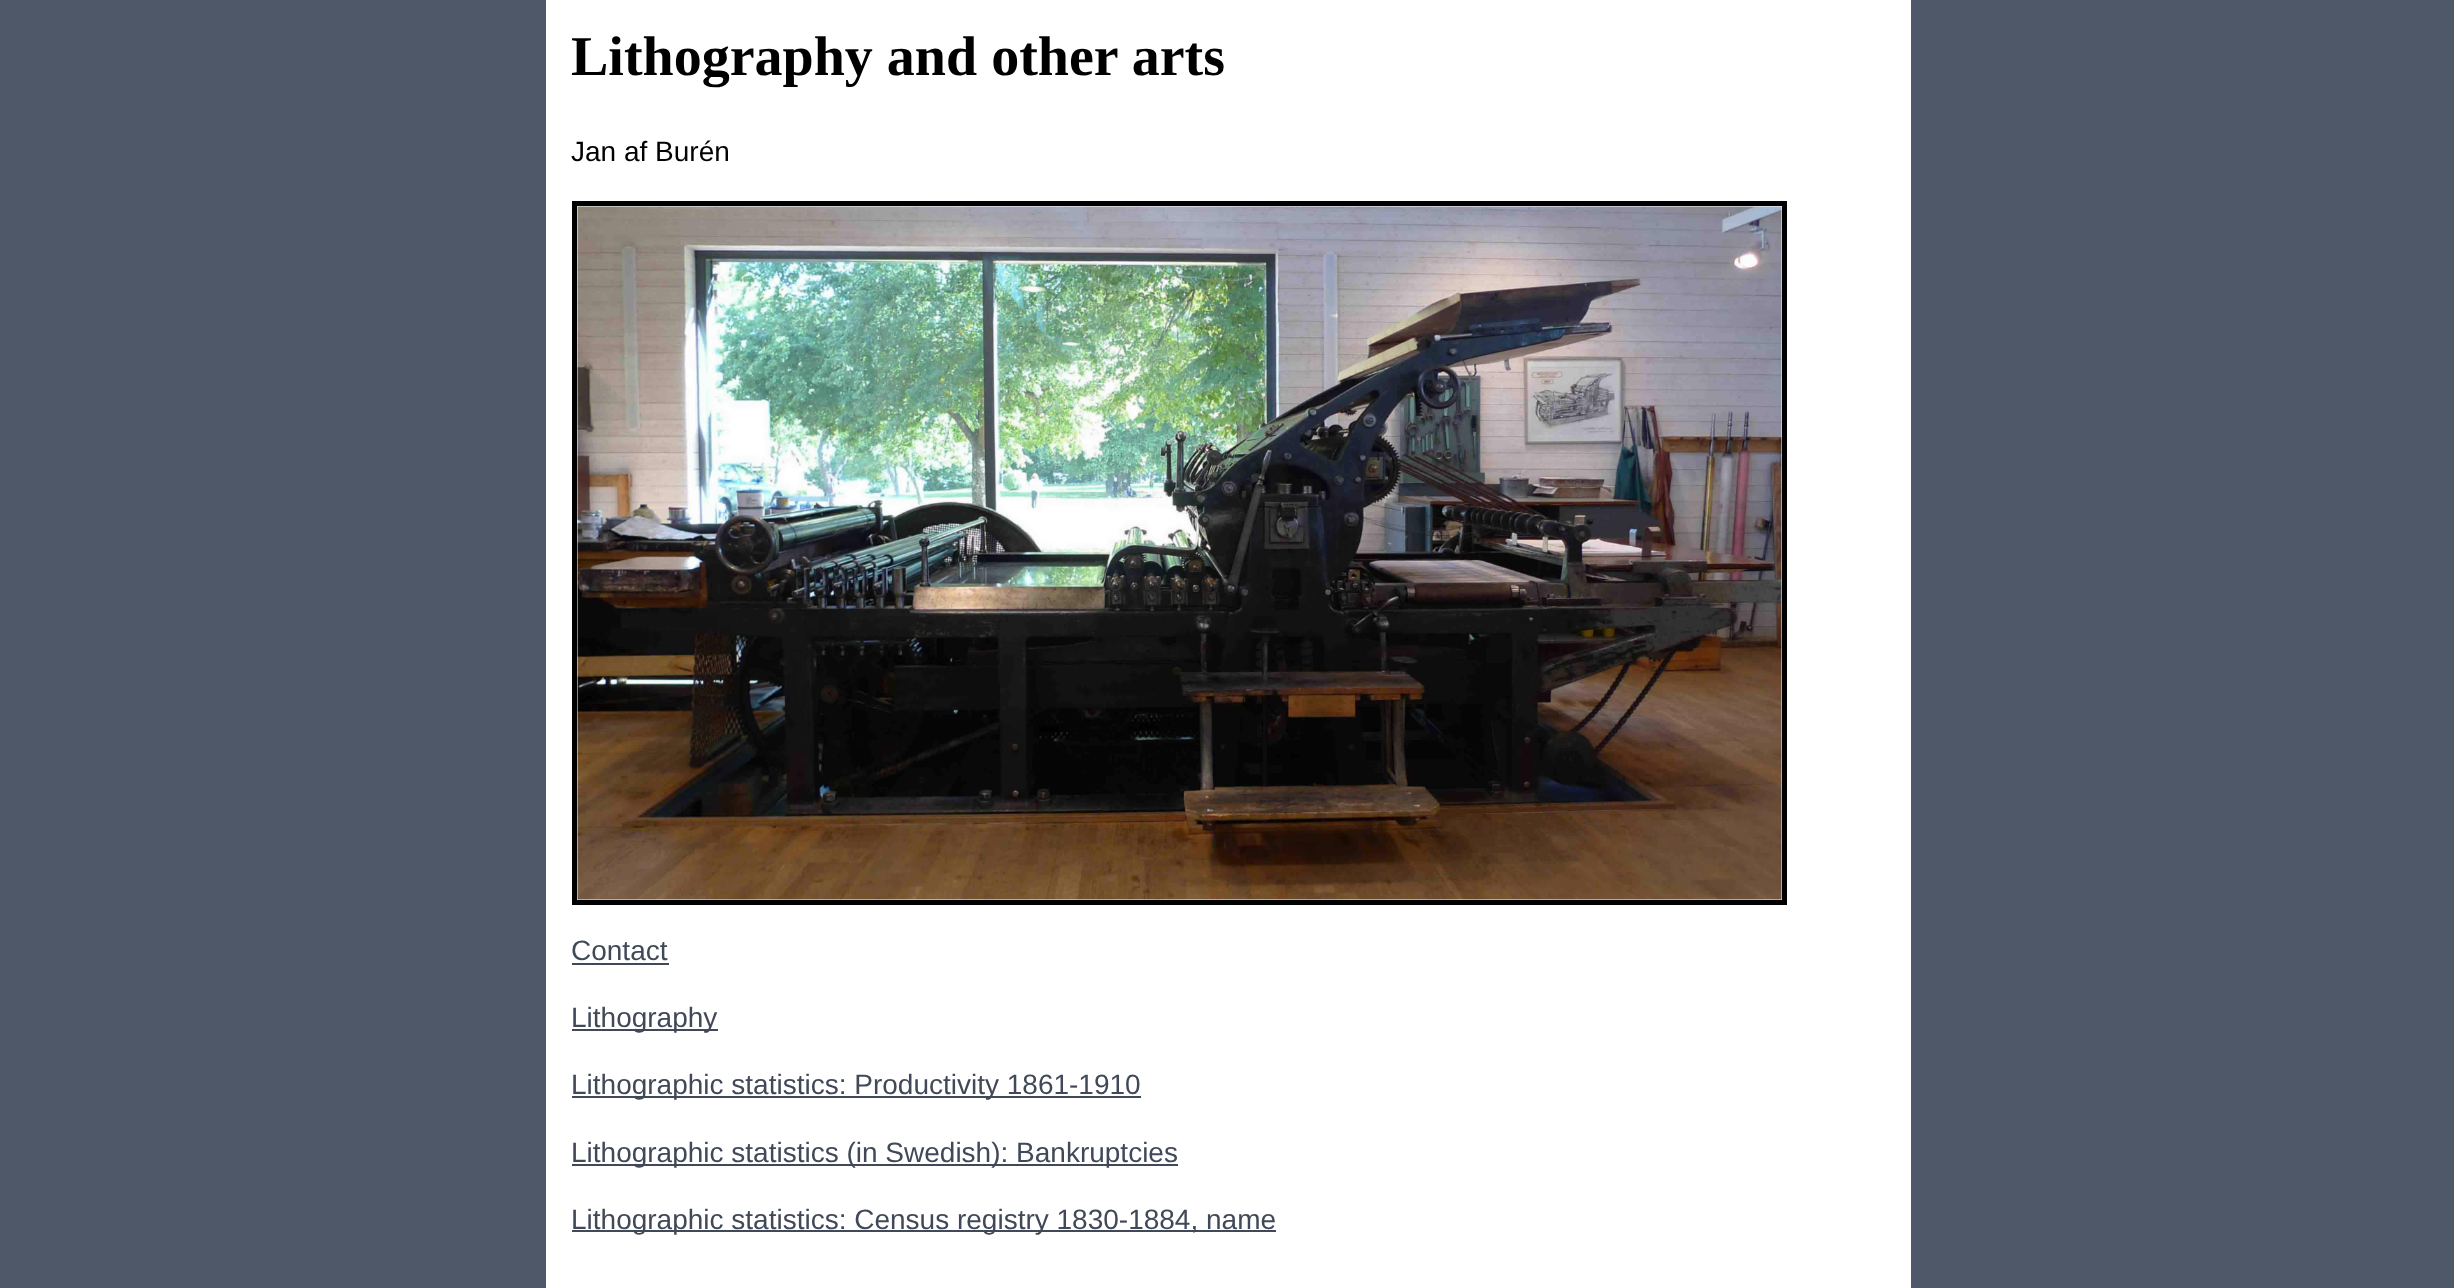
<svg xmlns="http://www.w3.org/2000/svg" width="2454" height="1288">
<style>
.a{font:bold 56px Liberation Serif;fill:#000}
.b{font:28px Liberation Sans;fill:#000}
.c{font:28px Liberation Sans;fill:#414958}
</style>
<rect width="100%" height="100%" fill="#4e5869"/>
<path fill="#fff" d="M546 0h1365v1288H546z"/>
<path fill="none" stroke="#000" stroke-width="5" d="M574.5 203.5h1210v699H574.5z"/>
<image href="1.png" x="577" y="206" width="1205" height="694"/>
<path fill="#414958" d="M572 963h97v2H572z"/>
<path fill="#414958" d="M572 1029h146v2H572z"/>
<path fill="#414958" d="M572 1096h569v2H572z"/>
<path fill="#414958" d="M572 1164h606v2H572z"/>
<path fill="#414958" d="M572 1230h704v2H572z"/>
<text class="a" x="571" y="75">Lithography and other arts</text>
<text class="b" x="571" y="161">Jan af Burén</text>
<text class="c" x="571" y="960">Contact</text>
<text class="c" x="571" y="1027">Lithography</text>
<text class="c" x="571" y="1094">Lithographic statistics: Productivity 1861-1910</text>
<text class="c" x="571" y="1162">Lithographic statistics (in Swedish): Bankruptcies</text>
<text class="c" x="571" y="1229">Lithographic statistics: Census registry 1830-1884, name</text>
</svg>
